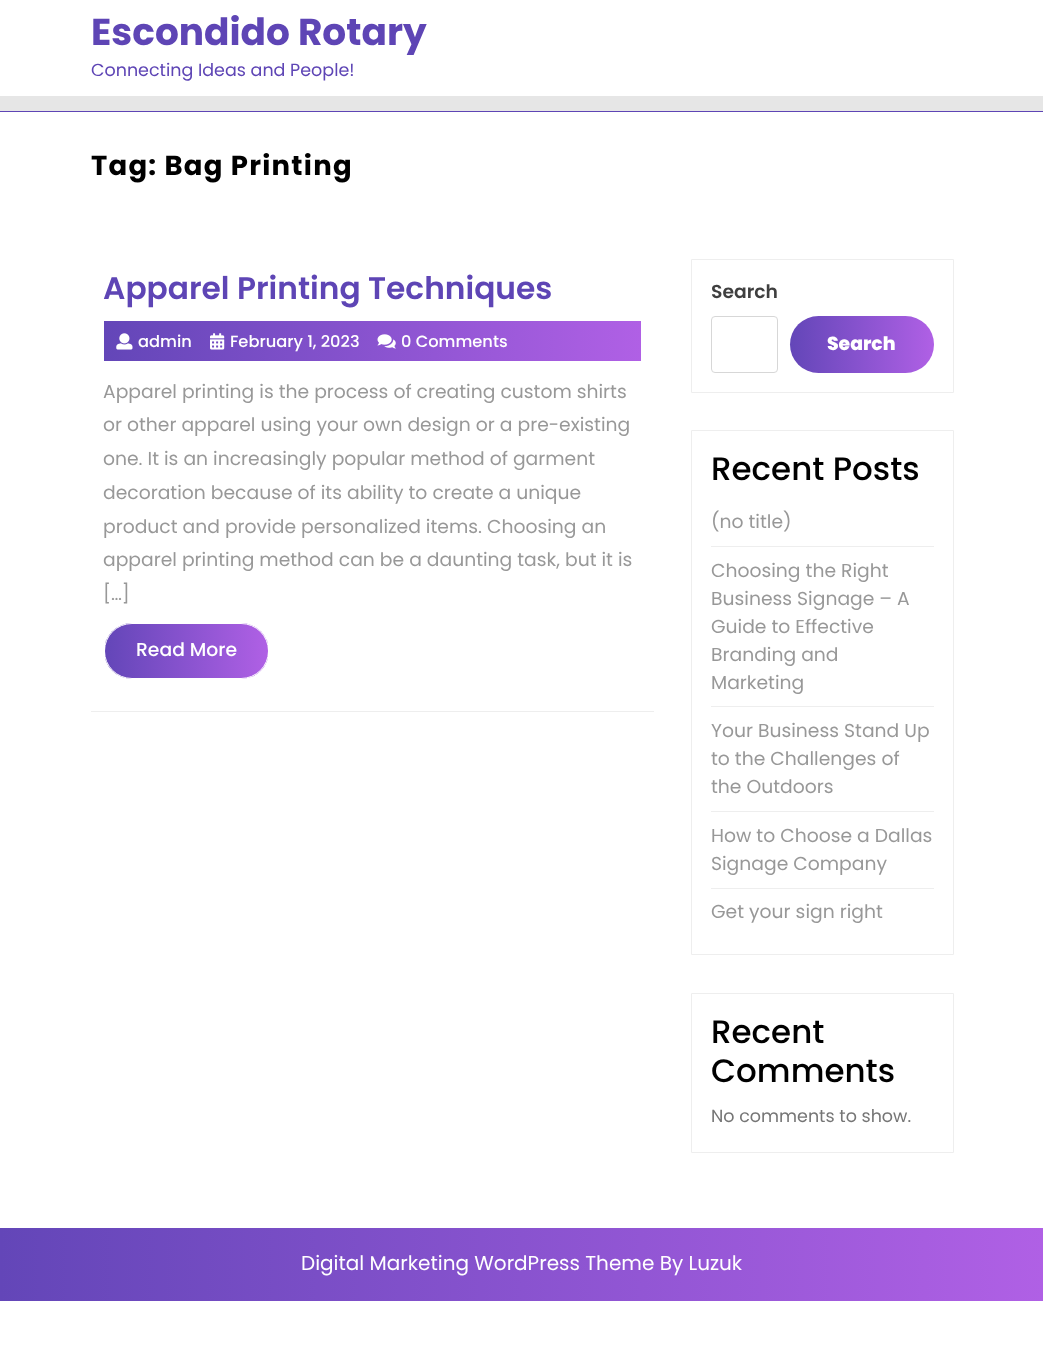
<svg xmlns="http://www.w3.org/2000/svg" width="1043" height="1369">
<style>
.a{font:bold 37.5px Poppins;fill:#5e45b5}
.b{font:17.5px Poppins;fill:#5e45b5}
.c{font:bold 27.5px Poppins;letter-spacing:1.25px;fill:#000}
.d{font:600 31.25px Poppins;fill:#5e45b5}
.e{font:500 16.25px Poppins;fill:#fff}
.f{font:18.75px Poppins;fill:#989898}
.g{font:500 18.75px Poppins;fill:#fff}
.h{font:600 18.75px Poppins;fill:#3f3f3f}
.i{font:800 18.75px Poppins;fill:#fff}
.j{font:500 32.5px Poppins;fill:#000}
.k{font:17.5px Poppins;fill:#767676}
.l{font:20px Poppins;fill:#fff}
</style>
<defs>
<linearGradient id="g1" gradientUnits="userSpaceOnUse" x1="104" y1="341" x2="641" y2="341"><stop offset="0" stop-color="#6346b8"/><stop offset="0.5" stop-color="#8953cf"/><stop offset="1" stop-color="#b060e5"/></linearGradient>
<clipPath id="clip1"><rect x="104" y="623" width="165" height="56" rx="28"/></clipPath>
<linearGradient id="g2" gradientUnits="userSpaceOnUse" x1="105" y1="651" x2="268" y2="651"><stop offset="0" stop-color="#6346b8"/><stop offset="0.5" stop-color="#8953cf"/><stop offset="1" stop-color="#b060e5"/></linearGradient>
<linearGradient id="g3" gradientUnits="userSpaceOnUse" x1="790" y1="344" x2="934" y2="344"><stop offset="0" stop-color="#6346b8"/><stop offset="0.5" stop-color="#8953cf"/><stop offset="1" stop-color="#b060e5"/></linearGradient>
<linearGradient id="g4" gradientUnits="userSpaceOnUse" x1="0" y1="1264" x2="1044" y2="1264"><stop offset="0" stop-color="#6346b8"/><stop offset="0.5" stop-color="#8953cf"/><stop offset="1" stop-color="#b060e5"/></linearGradient>
</defs>
<rect width="100%" height="100%" fill="#fff"/>
<path fill="#5e45b5" d="M0 111h1043v1H0z"/>
<path fill="#e6e6e6" d="M0 96h1043v15H0z"/>
<path fill="url(#g1)" d="M104 321h537v40H104z"/>
<image href="1.png" x="116" y="333" width="17" height="17"/>
<image href="2.png" x="210" y="333" width="15" height="17"/>
<image href="3.png" x="377" y="334" width="19" height="15"/>
<g clip-path="url(#clip1)">
<path fill="url(#g2)" d="M105 623h163v56H105z"/>
</g>
<rect fill="none" stroke="#fff" x="104.5" y="623.5" width="164" height="55" rx="27.5"/>
<path fill="#eee" d="M91 711h563v1H91z"/>
<path fill="none" stroke="#eee" d="M691.5 259.5h262v133H691.5z"/>
<rect fill="none" stroke="#d7d7d7" x="711.5" y="316.5" width="66" height="56" rx="3.5"/>
<rect fill="url(#g3)" x="790" y="316" width="144" height="57" rx="28.5"/>
<path fill="none" stroke="#eee" d="M691.5 430.5h262v524H691.5z"/>
<path fill="#eee" d="M711 546h223v1H711z"/>
<path fill="#eee" d="M711 706h223v1H711z"/>
<path fill="#eee" d="M711 811h223v1H711z"/>
<path fill="#eee" d="M711 888h223v1H711z"/>
<path fill="none" stroke="#eee" d="M691.5 993.5h262v159H691.5z"/>
<path fill="url(#g4)" d="M0 1228h1043v73H0z"/>
<text class="a" x="91" y="45">Escondido Rotary</text>
<text class="b" x="91" y="76">Connecting Ideas and People!</text>
<text class="c" x="91" y="175">Tag: Bag Printing</text>
<text class="d" x="103" y="299">Apparel Printing Techniques</text>
<text class="e" x="138" y="347">admin</text>
<text class="e" x="230" y="347">February 1, 2023</text>
<text class="e" x="401" y="347">0 Comments</text>
<text class="f" x="103" y="398">Apparel printing is the process of creating custom shirts</text>
<text class="f" x="103" y="431">or other apparel using your own design or a pre-existing</text>
<text class="f" x="103" y="465">one. It is an increasingly popular method of garment</text>
<text class="f" x="103" y="499">decoration because of its ability to create a unique</text>
<text class="f" x="103" y="533">product and provide personalized items. Choosing an</text>
<text class="f" x="103" y="566">apparel printing method can be a daunting task, but it is</text>
<text class="f" x="103" y="600">[…]</text>
<text class="g" x="136" y="656">Read More</text>
<text class="h" x="711" y="298">Search</text>
<text class="i" x="827" y="350">Search</text>
<text class="j" x="711" y="480">Recent Posts</text>
<text class="f" x="711" y="528">(no title)</text>
<text class="f" x="711" y="577">Choosing the Right</text>
<text class="f" x="711" y="605">Business Signage – A</text>
<text class="f" x="711" y="633">Guide to Effective</text>
<text class="f" x="711" y="661">Branding and</text>
<text class="f" x="711" y="689">Marketing</text>
<text class="f" x="711" y="737">Your Business Stand Up</text>
<text class="f" x="711" y="765">to the Challenges of</text>
<text class="f" x="711" y="793">the Outdoors</text>
<text class="f" x="711" y="842">How to Choose a Dallas</text>
<text class="f" x="711" y="870">Signage Company</text>
<text class="f" x="711" y="918">Get your sign right</text>
<text class="j" x="711" y="1043">Recent</text>
<text class="j" x="711" y="1082">Comments</text>
<text class="k" x="711" y="1122">No comments to show.</text>
<text class="l" x="301" y="1270">Digital Marketing WordPress Theme By Luzuk</text>
</svg>
